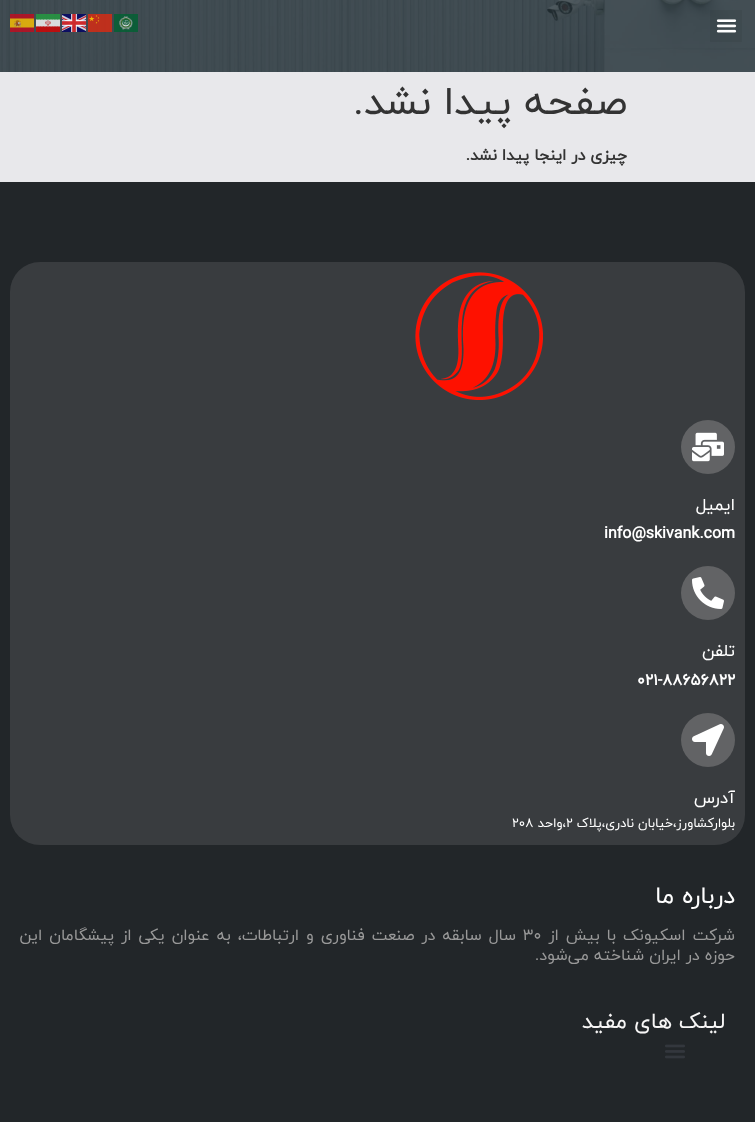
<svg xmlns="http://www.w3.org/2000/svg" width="755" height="1122">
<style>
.a{font:40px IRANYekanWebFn;direction:rtl;fill:#333}
.b{font:bold 16px IRANYekanWebFn;direction:rtl;fill:#333}
.c{font:17px IRANYekanWebFn;direction:rtl;fill:#fff}
.d{font:bold 16px IRANYekanWebFn;fill:#fff}
.e{font:13px IRANYekanWebFn;direction:rtl;fill:#fff}
.f{font:13px IRANYekanWebFn;fill:#fff}
.g{font:24px IRANYekanWebFn;direction:rtl;fill:#fff}
.h{font:16px IRANYekanWebFn;direction:rtl;fill:#999}
.i{font:16px IRANYekanWebFn;fill:#999}
.j{font:22px IRANYekanWebFn;direction:rtl;fill:#f7f6f6}
</style>
<rect width="100%" height="100%" fill="#e8e8eb"/>
<image href="1.png" x="0" y="0" width="755" height="72"/>
<path fill="#0000000d" d="M710 10h32v32H710z"/>
<image href="2.png" x="716" y="19" width="21" height="14"/>
<image href="3.png" x="114" y="14" width="24" height="18"/>
<image href="4.png" x="88" y="14" width="24" height="18"/>
<image href="5.png" x="62" y="14" width="24" height="18"/>
<image href="6.png" x="36" y="14" width="24" height="18"/>
<image href="7.png" x="10" y="14" width="24" height="18"/>
<path fill="#222629" d="M0 182h755v940H0z"/>
<rect fill="#393c3f" x="10" y="262" width="735" height="583" rx="30"/>
<image href="8.png" x="415" y="272" width="128" height="128"/>
<circle fill="#626365" cx="708" cy="447" r="27"/>
<image href="9.png" x="692" y="432" width="32" height="30"/>
<circle fill="#626365" cx="708" cy="593" r="27"/>
<image href="10.png" x="692" y="577" width="32" height="32"/>
<circle fill="#626365" cx="708" cy="740" r="27"/>
<image href="11.png" x="692" y="724" width="32" height="32"/>
<image href="12.png" x="665" y="1044" width="20" height="15"/>
<text class="a" x="627" y="114">صفحه پیدا نشد.</text>
<text class="b" x="627" y="160">چیزی در اینجا پیدا نشد.</text>
<text class="c" x="735" y="510">ایمیل</text>
<text class="d" x="604" y="538">info@skivank.com</text>
<text class="c" x="735" y="656">تلفن</text>
<text class="d" x="637" y="685">021-88656822</text>
<text class="c" x="735" y="803">آدرس</text>
<text class="e" x="735" y="827">بلوارکشاورز،خیابان نادری،پلاک</text>
<text class="f" x="566" y="827">2</text>
<text class="e" x="566" y="827">،واحد</text>
<text class="f" x="512" y="827">208</text>
<text class="g" x="735" y="903">درباره ما</text>
<text class="h" x="735" y="940" word-spacing="2">شرکت اسکیونک با بیش از</text>
<text class="i" x="523" y="940">30</text>
<text class="h" x="516" y="940" word-spacing="2">سال سابقه در صنعت فناوری و ارتباطات، به عنوان یکی از پیشگامان این</text>
<text class="h" x="735" y="960">حوزه در ایران شناخته می‌شود.</text>
<text class="j" x="725" y="1028">لینک های مفید</text>
</svg>
